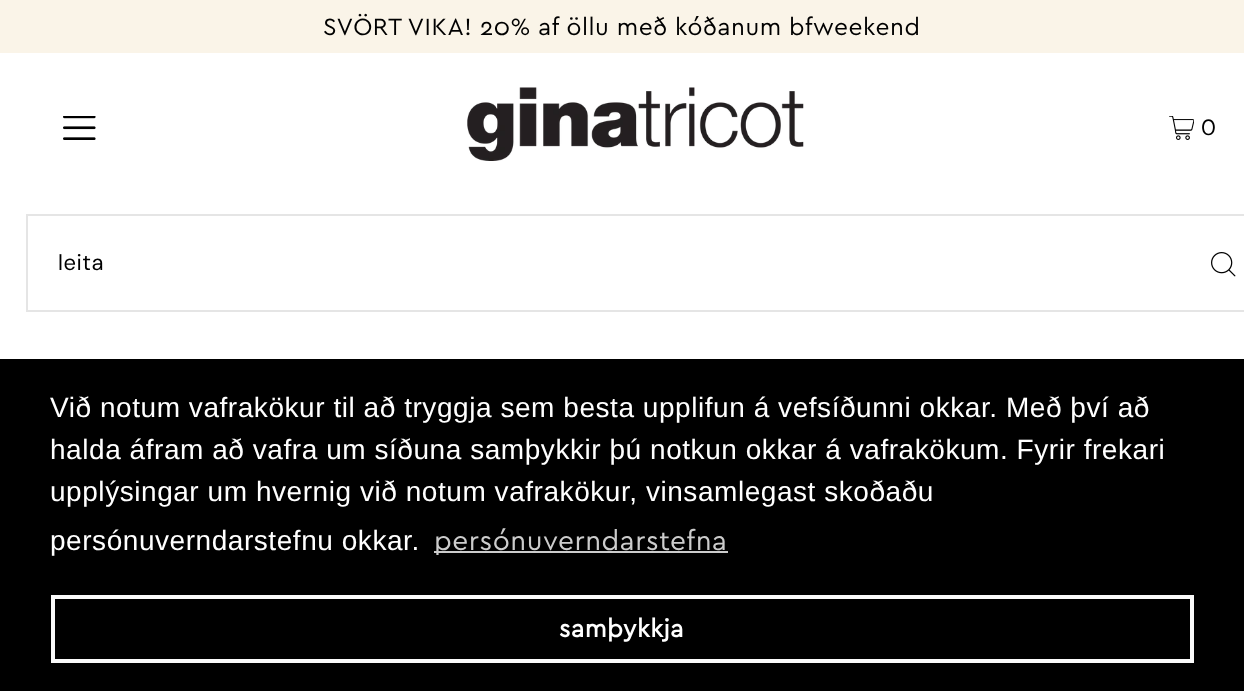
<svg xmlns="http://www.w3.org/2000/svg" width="1244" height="691">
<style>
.a{font:24.5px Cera;letter-spacing:0.55px;fill:#000}
.b{font:22px DM Sans;letter-spacing:0.55px;fill:#000}
.c{font:28px Liberation Sans;letter-spacing:0.55px;fill:#fff}
.d{font:28px Cera;letter-spacing:0.55px;fill:#ccc}
.e{font:bold 25px Cera;letter-spacing:0.55px;fill:#fff}
</style>
<rect width="100%" height="100%" fill="#fff"/>
<path fill="#faf4e8" d="M0 0h1244v53H0z"/>
<image href="1.png" x="63" y="116" width="33" height="24"/>
<image href="2.png" x="467" y="87" width="337" height="74"/>
<image href="3.png" x="1169" y="116" width="25" height="24"/>
<path fill="none" stroke="#e5e5e5" stroke-width="2" d="M27 215h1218v96H27z"/>
<image href="4.png" x="1211" y="252" width="25" height="25"/>
<path fill="#000" d="M0 359h1244v332H0z"/>
<path fill="#ccc" d="M434 551h294v2H434z"/>
<path fill="none" stroke="#fafafa" stroke-width="4" d="M53 597h1139v64H53z"/>
<text class="a" x="323" y="35">SVÖRT VIKA! 20% af öllu með kóðanum bfweekend</text>
<text class="b" x="1201" y="135">0</text>
<text class="b" x="58" y="270">leita</text>
<text class="c" x="50" y="417">Við notum vafrakökur til að tryggja sem besta upplifun á vefsíðunni okkar. Með því að</text>
<text class="c" x="50" y="459">halda áfram að vafra um síðuna samþykkir þú notkun okkar á vafrakökum. Fyrir frekari</text>
<text class="c" x="50" y="501">upplýsingar um hvernig við notum vafrakökur, vinsamlegast skoðaðu</text>
<text class="c" x="50" y="550">persónuverndarstefnu okkar.</text>
<text class="d" x="434" y="550">persónuverndarstefna</text>
<text class="e" x="559" y="637">samþykkja</text>
</svg>
